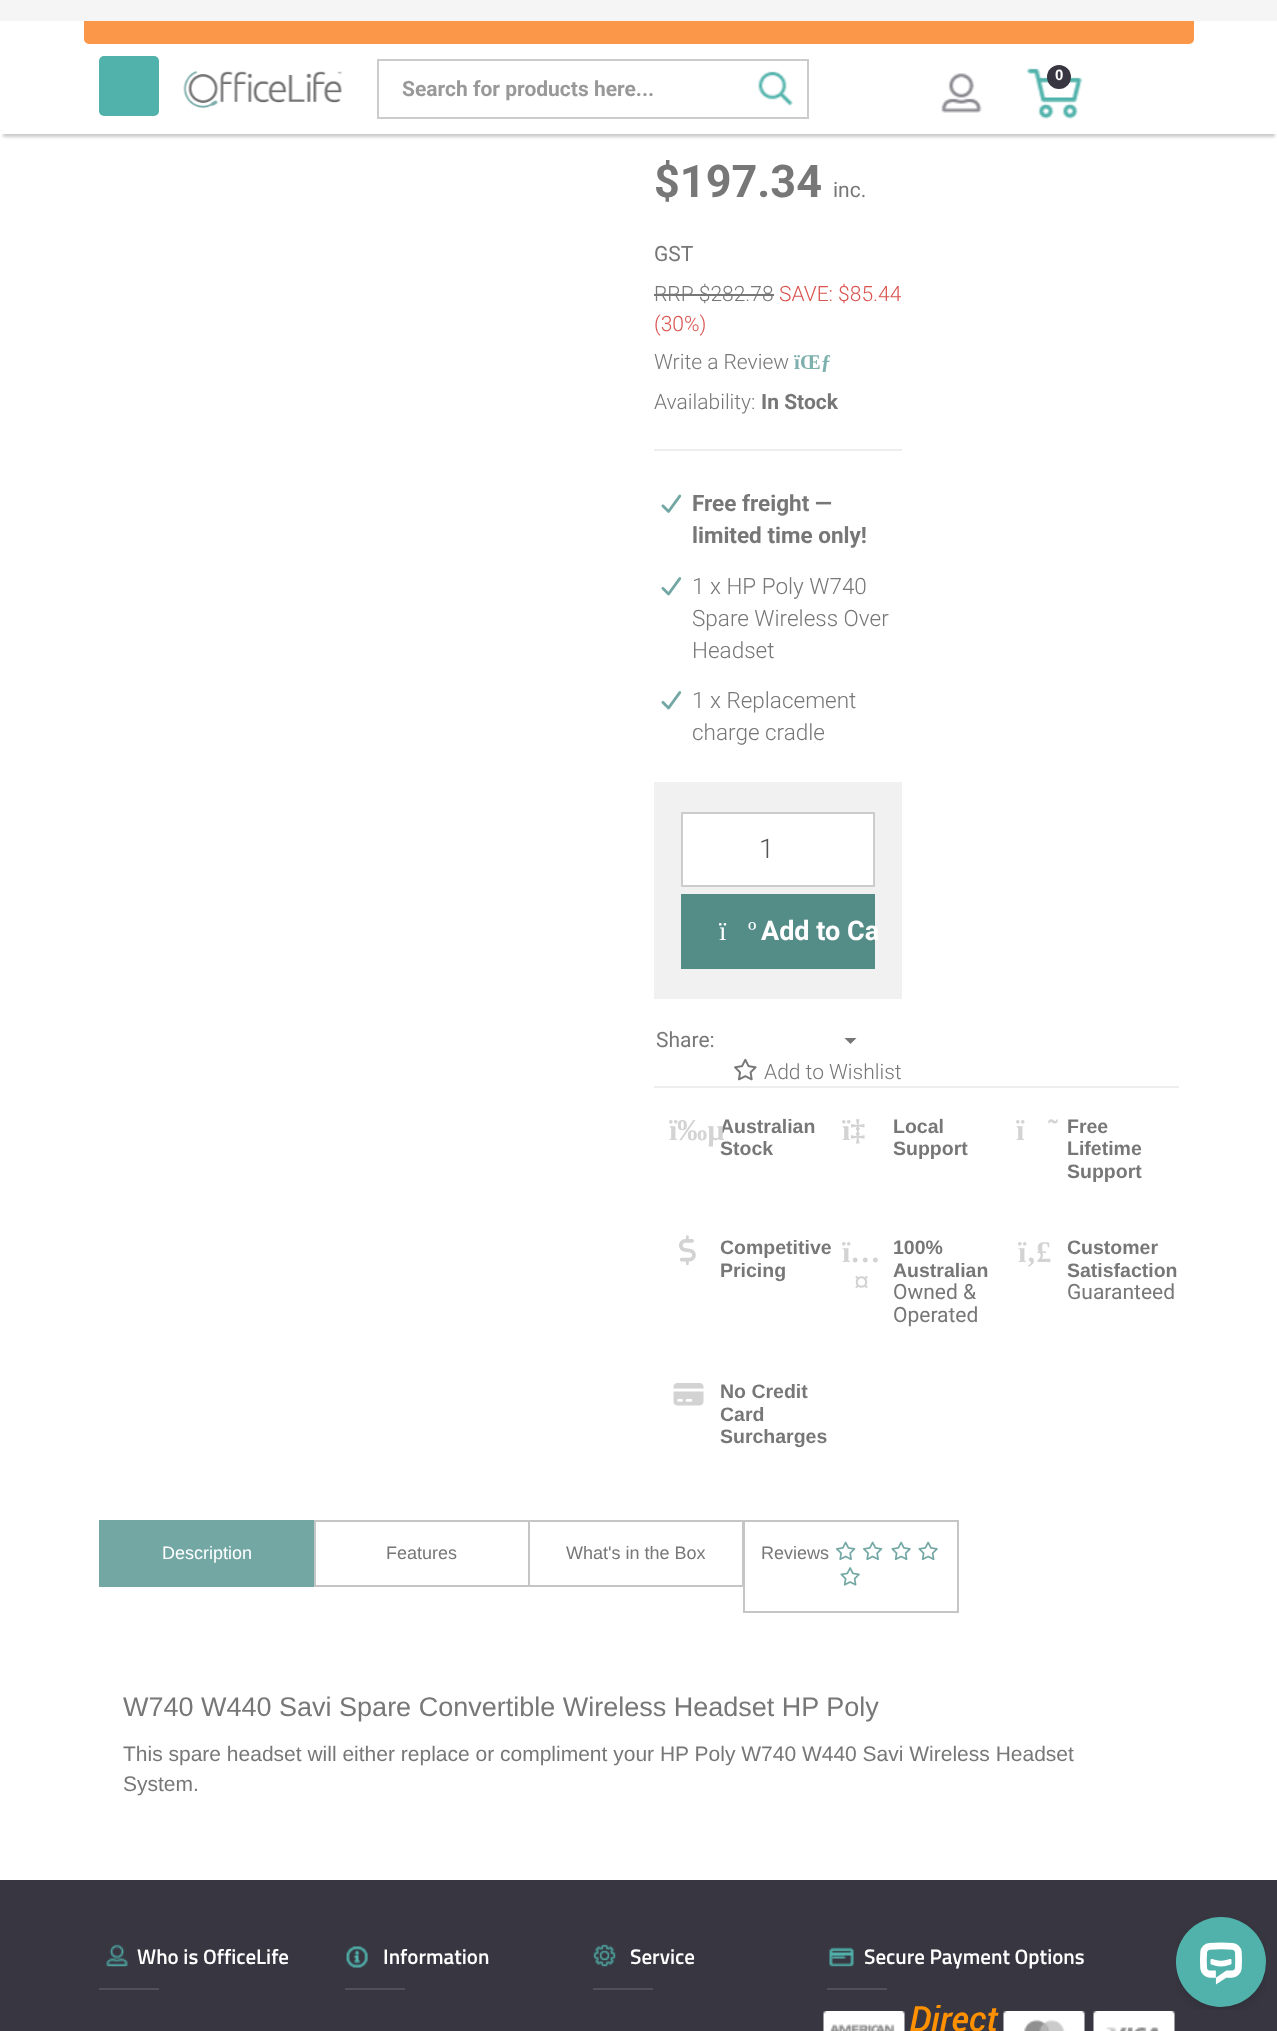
<svg xmlns="http://www.w3.org/2000/svg" width="1277" height="2031">
<style>
.a{font:bold 15px Liberation Sans;fill:#fff}
.b{font:bold 21px Roboto;fill:#999}
.c{font:bold 45px Roboto;fill:#777}
.d{font:21px Roboto;fill:#777}
.e{font:300 21px Roboto;fill:#777}
.f{font:300 21px Roboto;fill:#d9534f}
.g{font:bold 21px Liberation Serif;fill:#7eb0ad}
.h{font:bold 21px Roboto;fill:#777}
.i{font:bold 22.5px Roboto;fill:#777}
.j{font:300 22.5px Roboto;fill:#777}
.k{font:300 27px Roboto;fill:#555}
.l{font:27px Liberation Serif;fill:#fff}
.m{font:bold 27px Roboto;fill:#fff}
.n{font:bold 19.5px Liberation Sans;fill:#777}
.o{font:bold 30px Liberation Serif;fill:#d3d3d3}
.p{font:18px Liberation Sans;fill:#fff}
.q{font:18px Liberation Sans;fill:#777}
.r{font:27px Liberation Sans;fill:#777}
.s{font:21px Liberation Sans;fill:#777}
.t{font:600 21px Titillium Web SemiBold;fill:#fff}
</style>
<rect width="100%" height="100%" fill="#fff"/>
<path fill="#ccc" filter="blur(1.5px)" d="M3 -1h1272v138H3z"/>
<path fill="#fff" d="M1 21h1276v113H1z"/>
<rect fill="#fb9749" x="84" y="-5" width="1110" height="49" rx="5"/>
<path fill="#f5f5f5" d="M0 0h1277v21H0z"/>
<rect fill="#51b2ab" x="99" y="56" width="60" height="60" rx="5"/>
<image href="1.png" x="183" y="71" width="159" height="37"/>
<image href="2.png" x="941" y="73" width="41" height="40"/>
<image href="3.png" x="1026" y="68" width="57" height="51"/>
<circle fill="#383641" cx="1059" cy="77" r="12"/>
<path fill="#ccc" d="M377 59h432v2H377z"/>
<path fill="#ccc" d="M377 117h384v2H377z"/>
<path fill="#ccc" d="M377 59h2v60H377z"/>
<path fill="#ccc" d="M807 59h2v60H807z"/>
<path fill="#ccc" d="M759 117h50v2H759z"/>
<image href="4.png" x="758" y="71" width="35" height="35"/>
<path fill="#777" d="M654 294h120v2H654z"/>
<path fill="#eee" d="M654 449h248v2H654z"/>
<image href="5.png" x="661" y="494" width="21" height="19"/>
<image href="6.png" x="661" y="577" width="21" height="19"/>
<image href="6.png" x="661" y="691" width="21" height="19"/>
<path fill="#f1f1f1" d="M654 782h248v217H654z"/>
<path fill="#fff" stroke="#ccc" stroke-width="2" d="M682 813h192v73H682z"/>
<path fill="#548c88" d="M681 894h194v75H681z"/>
<path fill="#777" d="M844.5 1038h12l-6 6z"/>
<image href="7.png" x="734" y="1058" width="23" height="23"/>
<path fill="#eee" d="M654 1086h525v2H654z"/>
<image href="8.png" x="679" y="1235" width="17" height="31"/>
<image href="9.png" x="673" y="1383" width="31" height="23"/>
<path fill="#73a7a4" d="M99 1520h215v67H99z"/>
<path fill="none" stroke="#c5c5c5" stroke-width="2" d="M315 1521h214v65H315z"/>
<path fill="none" stroke="#c5c5c5" stroke-width="2" d="M529 1521h214v65H529z"/>
<path fill="none" stroke="#c5c5c5" stroke-width="2" d="M744 1521h214v91H744z"/>
<image href="10.png" x="836" y="1541" width="20" height="19"/>
<image href="10.png" x="863" y="1541" width="20" height="19"/>
<image href="11.png" x="891" y="1541" width="20" height="20"/>
<image href="11.png" x="918" y="1541" width="20" height="20"/>
<image href="12.png" x="840" y="1567" width="20" height="19"/>
<path fill="#383641" d="M0 1880h1277v151H0z"/>
<image href="13.png" x="106" y="1944" width="22" height="23"/>
<path fill="#514e5d" d="M99 1988h60v2H99z"/>
<image href="14.png" x="346" y="1946" width="22" height="22"/>
<path fill="#514e5d" d="M345 1988h60v2H345z"/>
<image href="15.png" x="593" y="1944" width="23" height="23"/>
<path fill="#514e5d" d="M593 1988h60v2H593z"/>
<image href="16.png" x="829" y="1947" width="25" height="20"/>
<path fill="#514e5d" d="M827 1988h60v2H827z"/>
<image href="17.png" x="823" y="2011" width="82" height="20"/>
<image href="18.png" x="910" y="2005" width="89" height="26"/>
<image href="19.png" x="1003" y="2011" width="82" height="20"/>
<image href="20.png" x="1093" y="2011" width="82" height="20"/>
<image href="21.png" x="1176" y="1917" width="90" height="93"/>
<text class="a" x="1055" y="80">0</text>
<text class="b" x="402" y="96">Search for products here...</text>
<text class="c" x="654" y="197">$197.34</text>
<text class="d" x="833" y="197">inc.</text>
<text class="d" x="654" y="261">GST</text>
<text class="e" x="654" y="301">RRP $282.78</text>
<text class="f" x="779" y="301">SAVE: $85.44</text>
<text class="f" x="654" y="331">(30%)</text>
<text class="e" x="654" y="369">Write a Review</text>
<text class="g" x="794" y="369">ïŒƒ</text>
<text class="e" x="654" y="409">Availability:</text>
<text class="h" x="761" y="409">In Stock</text>
<text class="i" x="692" y="511">Free freight —</text>
<text class="i" x="692" y="543">limited time only!</text>
<text class="j" x="692" y="594">1 x HP Poly W740</text>
<text class="j" x="692" y="626">Spare Wireless Over</text>
<text class="j" x="692" y="658">Headset</text>
<text class="j" x="692" y="708">1 x Replacement</text>
<text class="j" x="692" y="740">charge cradle</text>
<text class="k" x="759" y="858">1</text>
<text class="l" x="719" y="940">ï</text>
<text class="l" x="748" y="940">º</text>
<text class="m" x="761" y="940">Add to Ca</text>
<text class="d" x="656" y="1047">Share:</text>
<text class="e" x="764" y="1079">Add to Wishlist</text>
<text class="n" x="720" y="1133">Australian</text>
<text class="n" x="720" y="1155">Stock</text>
<text class="o" x="669" y="1140">ï‰µ</text>
<text class="o" x="842" y="1140">ï‡</text>
<text class="n" x="893" y="1133">Local</text>
<text class="n" x="893" y="1155">Support</text>
<text class="o" x="1016" y="1140">ï</text>
<text class="o" x="1048" y="1140">˜</text>
<text class="n" x="1067" y="1133">Free</text>
<text class="n" x="1067" y="1155">Lifetime</text>
<text class="n" x="1067" y="1178">Support</text>
<text class="n" x="720" y="1254">Competitive</text>
<text class="n" x="720" y="1277">Pricing</text>
<text class="o" x="842" y="1262">ï…</text>
<text class="o" x="854" y="1292">¤</text>
<text class="n" x="893" y="1254">100%</text>
<text class="n" x="893" y="1277">Australian</text>
<text class="d" x="893" y="1299">Owned &amp;</text>
<text class="d" x="893" y="1322">Operated</text>
<text class="o" x="1018" y="1262">ï‚£</text>
<text class="n" x="1067" y="1254">Customer</text>
<text class="n" x="1067" y="1277">Satisfaction</text>
<text class="d" x="1067" y="1299">Guaranteed</text>
<text class="n" x="720" y="1398">No Credit</text>
<text class="n" x="720" y="1421">Card</text>
<text class="n" x="720" y="1443">Surcharges</text>
<text class="p" x="162" y="1559">Description</text>
<text class="q" x="386" y="1559">Features</text>
<text class="q" x="566" y="1559">What's in the Box</text>
<text class="q" x="761" y="1559">Reviews</text>
<text class="r" x="123" y="1716">W740 W440 Savi Spare Convertible Wireless Headset HP Poly</text>
<text class="s" x="123" y="1761">This spare headset will either replace or compliment your HP Poly W740 W440 Savi Wireless Headset</text>
<text class="s" x="123" y="1791">System.</text>
<text class="t" x="137" y="1964">Who is OfficeLife</text>
<text class="t" x="383" y="1964">Information</text>
<text class="t" x="630" y="1964">Service</text>
<text class="t" x="864" y="1964">Secure Payment Options</text>
</svg>
